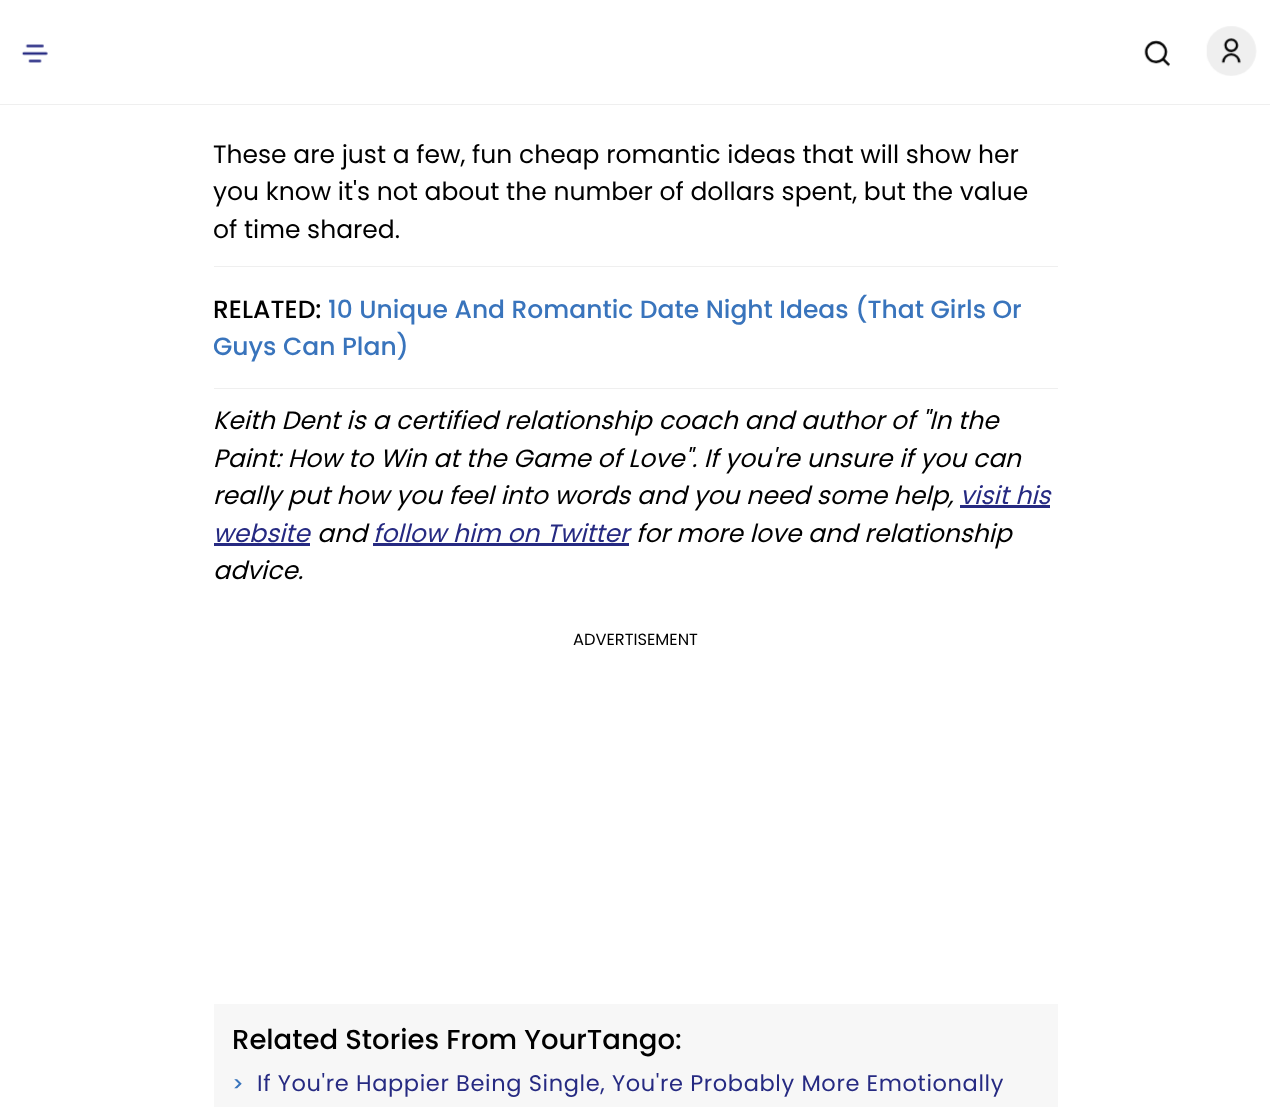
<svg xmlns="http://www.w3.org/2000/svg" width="1270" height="1107">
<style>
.a{font:25px Poppins;fill:#000}
.b{font:500 25px Poppins;fill:#000}
.c{font:500 25px Poppins;fill:#3974bc}
.d{font:italic 25px Poppins;fill:#000}
.e{font:italic 25px Poppins;fill:#262a82}
.f{font:16.25px Poppins;fill:#000}
.g{font:500 27.5px Poppins;fill:#000}
.h{font:500 20px Poppins;letter-spacing:0.62px;fill:#3974bc}
.i{font:22.5px Poppins;letter-spacing:0.62px;fill:#262a82}
</style>
<rect width="100%" height="100%" fill="#fff"/>
<path fill="#efefef" d="M0 104h1270v1H0z"/>
<image href="1.png" x="21" y="44" width="27" height="19"/>
<image href="2.png" x="1144" y="40" width="26" height="27"/>
<image href="3.png" x="1206" y="26" width="51" height="50"/>
<path fill="#efefef" d="M214 266h844v1H214z"/>
<path fill="#efefef" d="M214 388h844v1H214z"/>
<path fill="#262a82" d="M960 505h90v3H960z"/>
<path fill="#262a82" d="M214 543h96v3H214z"/>
<path fill="#262a82" d="M373 543h256v3H373z"/>
<path fill="#f7f7f7" d="M214 1004h844v103H214z"/>
<text class="a" x="213" y="163">These are just a few, fun cheap romantic ideas that will show her</text>
<text class="a" x="213" y="200">you know it's not about the number of dollars spent, but the value</text>
<text class="a" x="213" y="238">of time shared.</text>
<text class="b" x="213" y="318">RELATED:</text>
<text class="c" x="328" y="318">10 Unique And Romantic Date Night Ideas (That Girls Or</text>
<text class="c" x="213" y="355">Guys Can Plan)</text>
<text class="d" x="213" y="429">Keith Dent is a certified relationship coach and author of "In the</text>
<text class="d" x="213" y="467">Paint: How to Win at the Game of Love". If you're unsure if you can</text>
<text class="d" x="213" y="504">really put how you feel into words and you need some help,</text>
<text class="e" x="960" y="504">visit his</text>
<text class="e" x="213" y="542">website</text>
<text class="d" x="317" y="542">and</text>
<text class="e" x="373" y="542">follow him on Twitter</text>
<text class="d" x="636" y="542">for more love and relationship</text>
<text class="d" x="213" y="579">advice.</text>
<text class="f" x="573" y="645">ADVERTISEMENT</text>
<text class="g" x="232" y="1049">Related Stories From YourTango:</text>
<text class="h" x="232" y="1091">&gt;</text>
<text class="i" x="257" y="1091">If You're Happier Being Single, You're Probably More Emotionally</text>
</svg>
